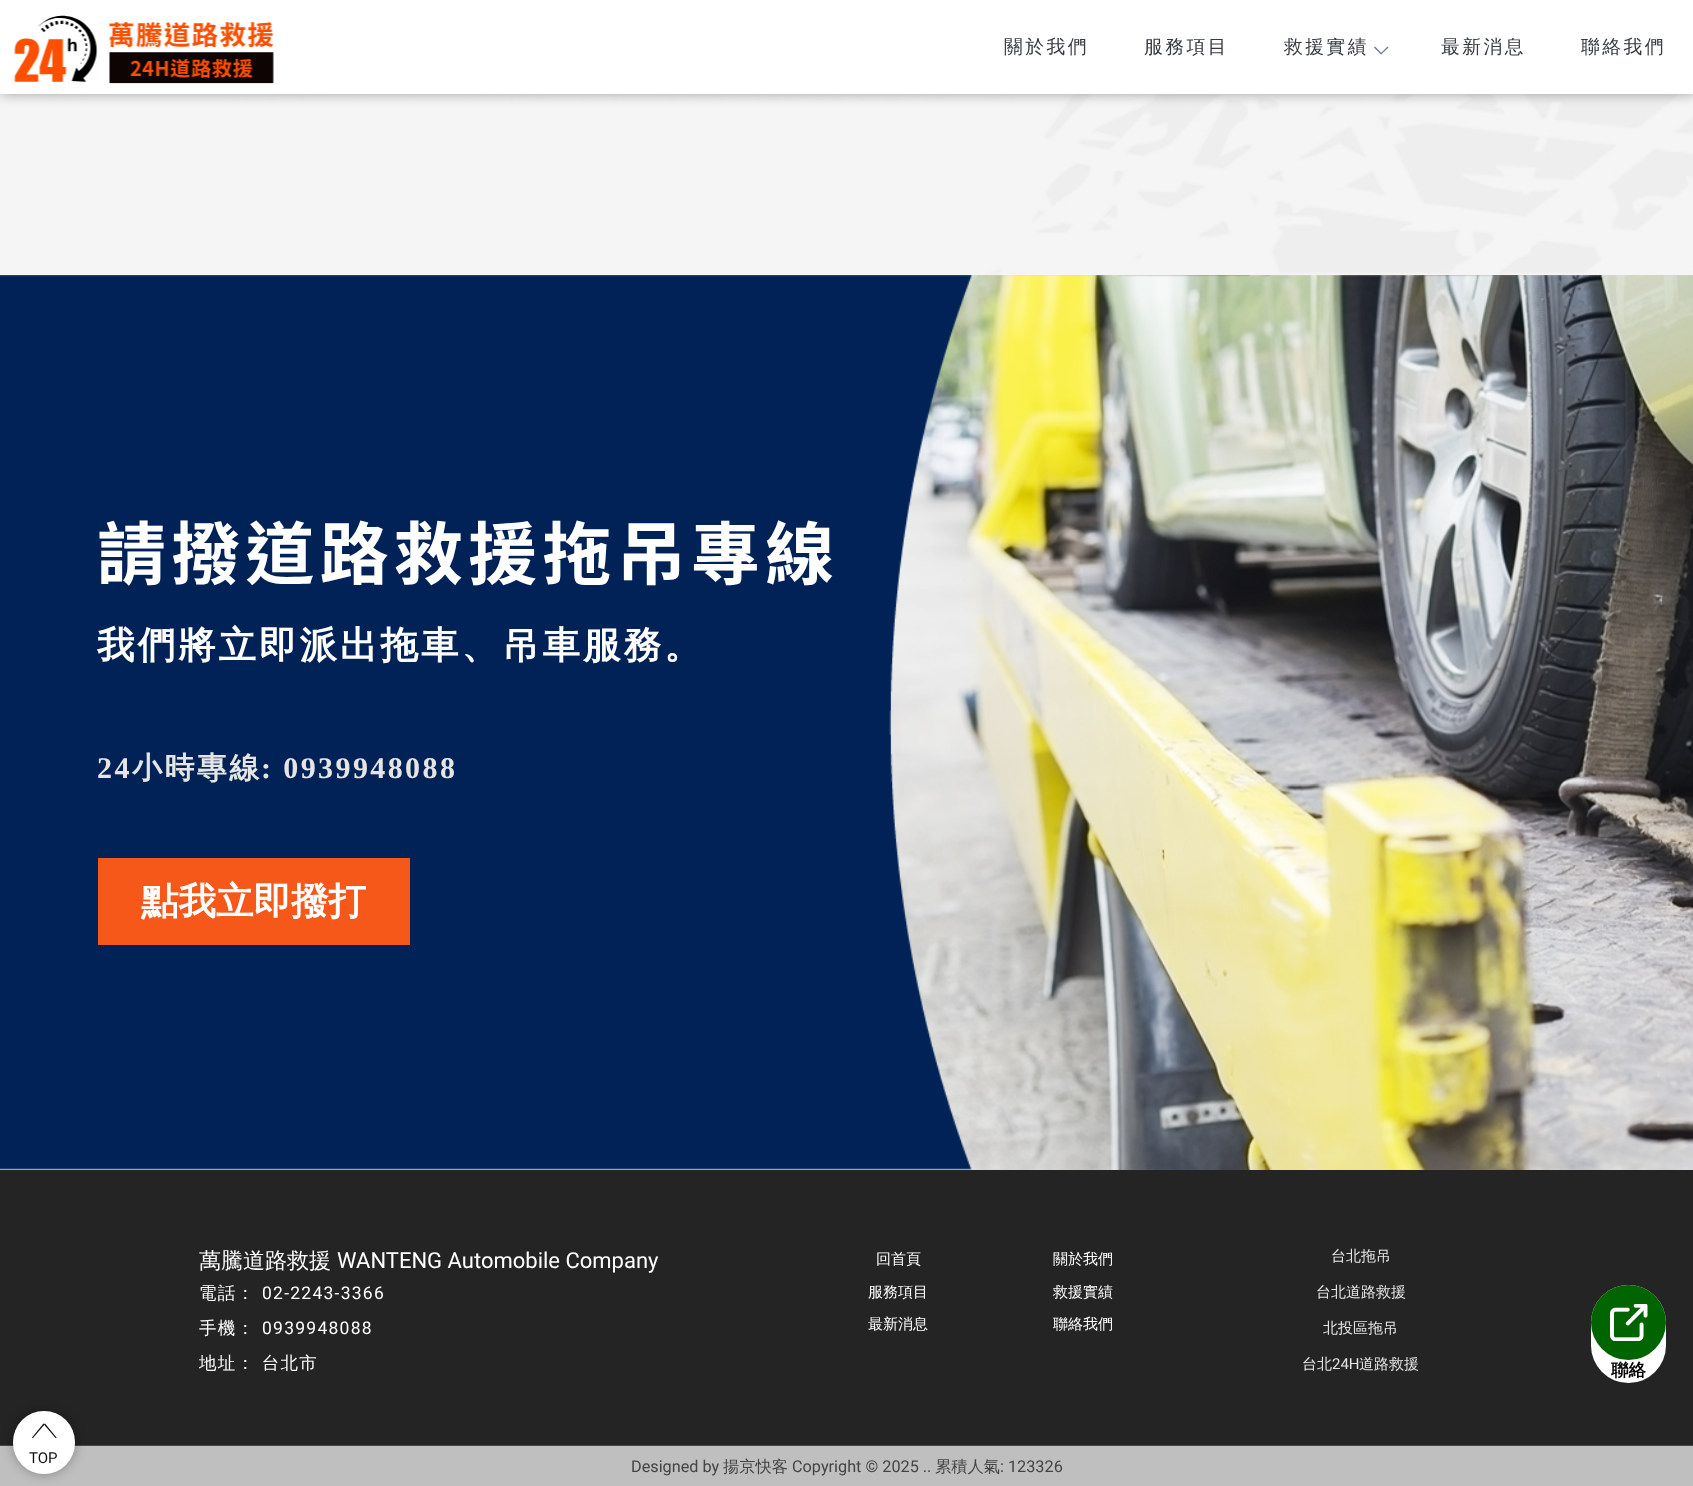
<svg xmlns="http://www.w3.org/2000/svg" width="1693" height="1486">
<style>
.a{font:500 18.75px WenQuanYi Zen Hei;letter-spacing:2.5px;fill:#343a40}
.b{font:bold 68.75px Noto Sans TC;letter-spacing:5.5px;fill:#fff}
.c{font:bold 37.5px WenQuanYi Zen Hei;letter-spacing:3px;fill:#fff}
.d{font:bold 30px Liberation Serif;letter-spacing:2.4px;fill:#e5e5e5}
.e{font:bold 30px WenQuanYi Zen Hei;letter-spacing:2.4px;fill:#e5e5e5}
.f{font:bold 37.5px WenQuanYi Zen Hei;fill:#fff}
.g{font:15px Roboto;fill:#111}
.h{font:500 22px WenQuanYi Zen Hei;fill:#fff}
.i{font:22px Roboto;fill:#fff}
.j{font:500 17.5px WenQuanYi Zen Hei;letter-spacing:1.25px;fill:#fff}
.k{font:17.5px Roboto;letter-spacing:1.25px;fill:#fff}
.l{font:500 15px WenQuanYi Zen Hei;fill:#fff}
.m{font:500 15px WenQuanYi Zen Hei;fill:#e5e5e5}
.n{font:15px Roboto;fill:#e5e5e5}
.o{font:bold 17.5px WenQuanYi Zen Hei;fill:#000}
.p{font:16.25px Roboto;fill:#444}
.q{font:500 16.25px WenQuanYi Zen Hei;fill:#444}
</style>
<rect width="100%" height="100%" fill="#fff"/>
<image href="2.png" x="0" y="94" width="1693" height="181"/>
<path fill="#0000004d" filter="blur(6px)" d="M1 1h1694v94H1z"/>
<path fill="#fff" d="M0 0h1693v94H0z"/>
<image href="1.png" x="14" y="15" width="260" height="69"/>
<path fill="#70798b" d="M1387.5 46.5l1 1l-7.5 7l-.5-1z"/>
<path fill="#70798b" d="M1375 46.5l7 7l-1 1l-7-7z"/>
<image href="3.png" x="0" y="275" width="1693" height="895"/>
<path fill="#f55819" d="M98 858h312v87H98z"/>
<path fill="#242424" d="M0 1170h1693v275H0z"/>
<path fill="#bfbfbf" d="M0 1446h1693v40H0z"/>
<path fill="#4c4545" d="M0 1445h1693v1H0z"/>
<rect fill="#0000004d" filter="blur(6px)" x="13" y="1411" width="62" height="63" rx="31"/>
<rect fill="#fff" x="13" y="1411" width="62" height="63" rx="31"/>
<path fill="#111" d="M44.5 1424l.5-.5l11.5 14v.5h-1l-11.5-13.5z"/>
<path fill="#111" d="M44.5 1424v.5l-11.5 13.5h-.5l-.5-.5l11.5-14z"/>
<rect fill="#fff" x="1591" y="1285" width="75" height="98" rx="37.5"/>
<circle fill="#006400" cx="1628.5" cy="1322.5" r="37.5"/>
<image href="4.png" x="1610" y="1304" width="38" height="37"/>
<text class="a" x="1004" y="53">關於我們</text>
<text class="a" x="1144" y="53">服務項目</text>
<text class="a" x="1284" y="53">救援實績</text>
<text class="a" x="1441" y="53">最新消息</text>
<text class="a" x="1581" y="53">聯絡我們</text>
<text class="b" x="97" y="579">請撥道路救援拖吊專線</text>
<text class="c" x="97" y="658">我們將立即派出拖車、吊車服務。</text>
<text class="d" x="97" y="778">24</text>
<text class="e" x="132" y="778">小時專線</text>
<text class="d" x="261" y="778">: 0939948088</text>
<text class="f" x="141" y="914">點我立即撥打</text>
<text class="g" x="29" y="1463">TOP</text>
<text class="h" x="199" y="1268">萬騰道路救援</text>
<text class="i" x="337" y="1268">WANTENG Automobile Company</text>
<text class="j" x="199" y="1299">電話：</text>
<text class="k" x="262" y="1299">02-2243-3366</text>
<text class="j" x="199" y="1334">手機：</text>
<text class="k" x="262" y="1334">0939948088</text>
<text class="j" x="199" y="1369">地址： 台北市</text>
<text class="l" x="876" y="1264">回首頁</text>
<text class="l" x="1053" y="1264">關於我們</text>
<text class="l" x="868" y="1297">服務項目</text>
<text class="l" x="1053" y="1297">救援實績</text>
<text class="l" x="868" y="1329">最新消息</text>
<text class="l" x="1053" y="1329">聯絡我們</text>
<text class="m" x="1331" y="1261">台北拖吊</text>
<text class="m" x="1316" y="1297">台北道路救援</text>
<text class="m" x="1323" y="1333">北投區拖吊</text>
<text class="m" x="1302" y="1369">台北</text>
<text class="n" x="1332" y="1369">24H</text>
<text class="m" x="1359" y="1369">道路救援</text>
<text class="o" x="1611" y="1376">聯絡</text>
<text class="p" x="631" y="1472">Designed by</text>
<text class="q" x="723" y="1472">揚京快客</text>
<text class="p" x="792" y="1472">Copyright © 2025 ..</text>
<text class="q" x="935" y="1472">累積人氣</text>
<text class="p" x="1000" y="1472">: 123326</text>
</svg>
